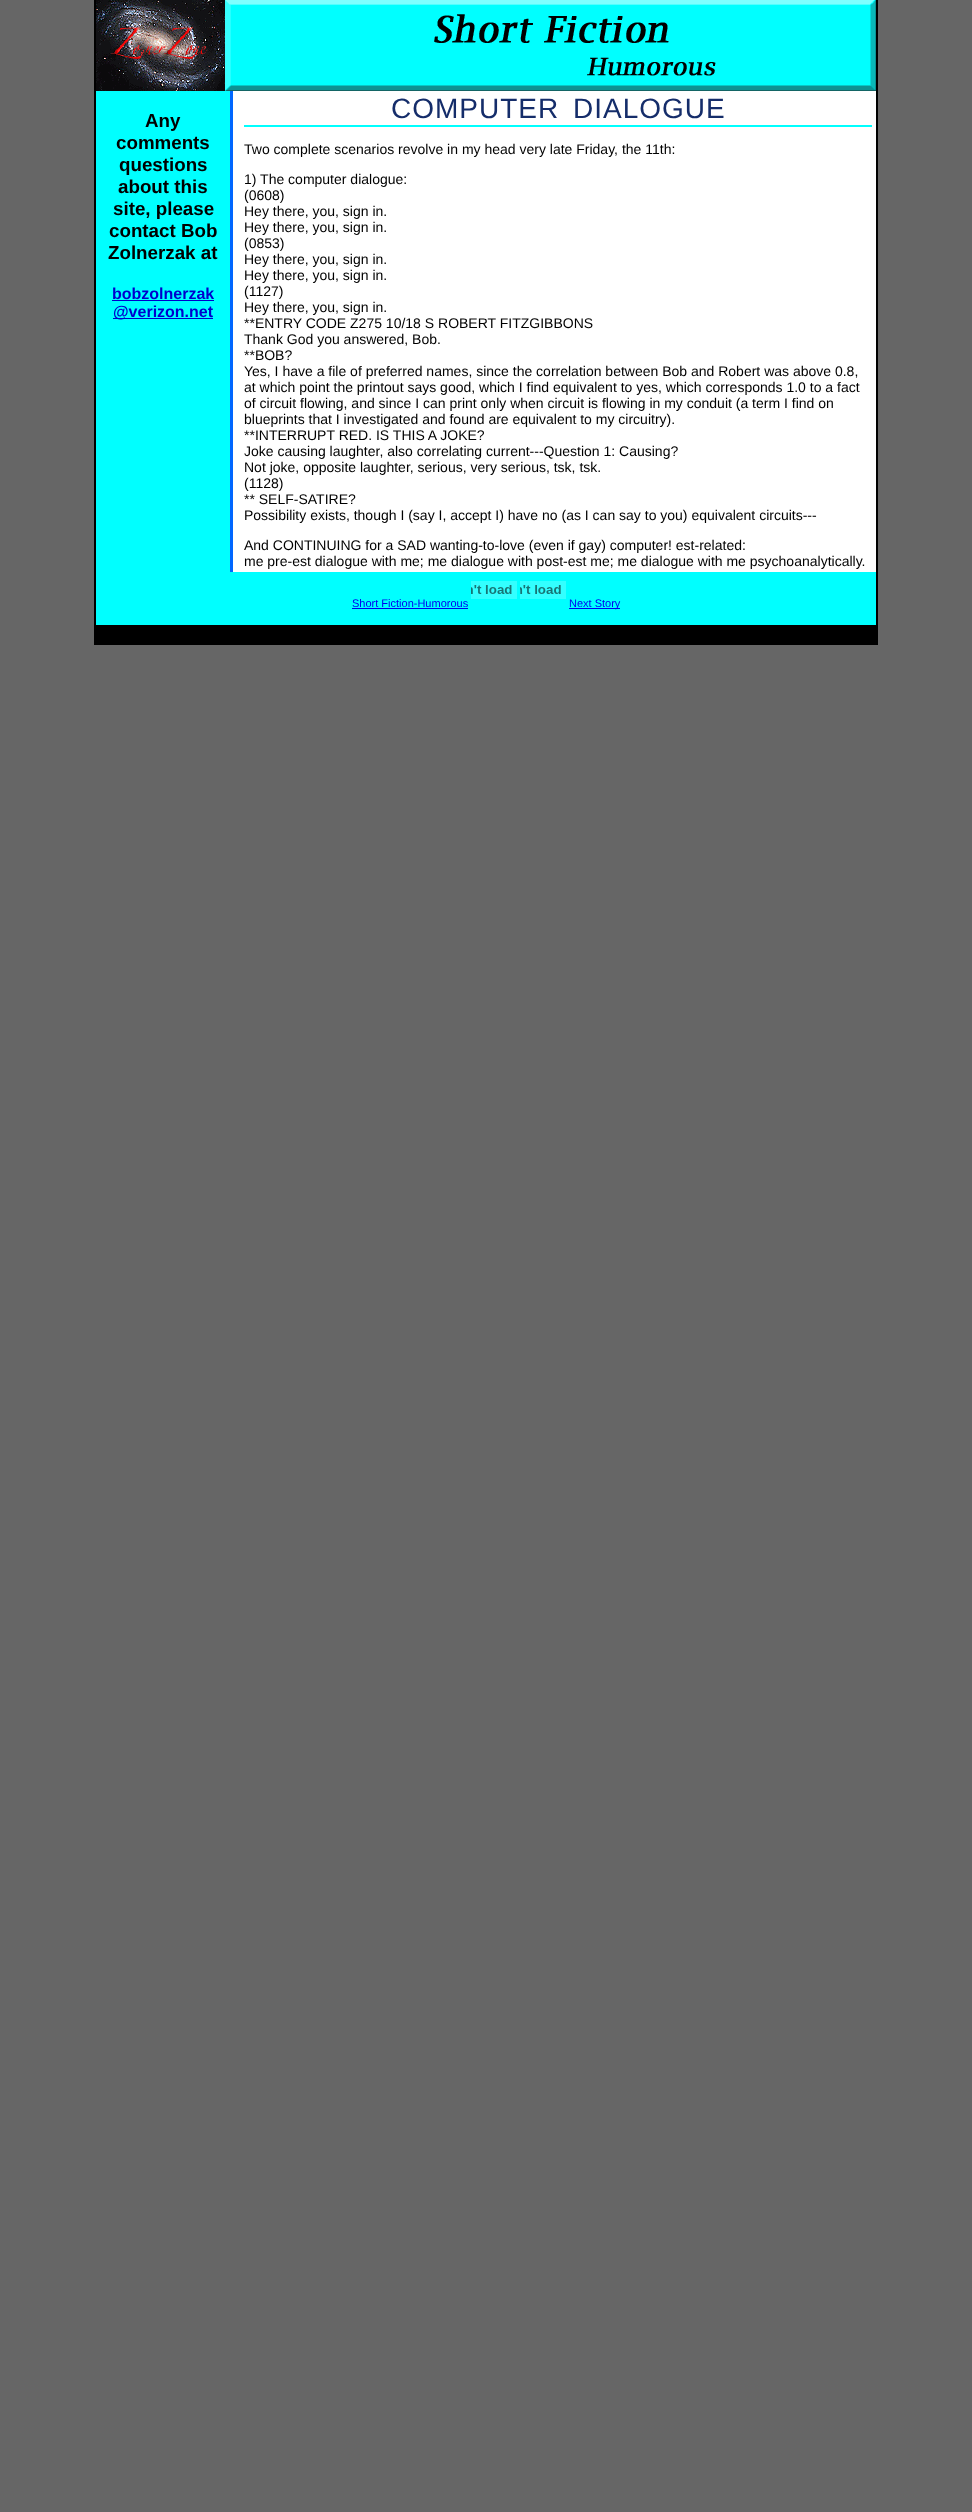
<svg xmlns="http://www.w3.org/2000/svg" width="972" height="2512">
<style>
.a{font:bold 18.75px Liberation Sans;fill:#000}
.b{font:bold 16px Liberation Sans;fill:#00c}
.c{font:28px Liberation Sans;letter-spacing:1px;fill:#152d6a}
.d{font:14px Liberation Sans;fill:#000}
.e{font:11px Liberation Sans;fill:#00e}
</style>
<rect width="100%" height="100%" fill="#666"/>
<path fill="#fff" d="M233 91h643v481H233z"/>
<image href="1.png" x="96" y="91" width="137" height="481"/>
<path fill="#000" d="M876 0h2v625H876z"/>
<path fill="#000" d="M96 625h782v20H96z"/>
<path fill="#000" d="M94 0h2v645H94z"/>
<image href="2.png" x="96" y="0" width="780" height="91"/>
<path fill="#00c" d="M112 300h102v1H112z"/>
<path fill="#00c" d="M113 318h100v1H113z"/>
<path fill="#0ff" d="M244 125h628v2H244z"/>
<path fill="#0ff" d="M96 572h780v53H96z"/>
<image href="3.png" x="471" y="581" width="46" height="18"/>
<image href="4.png" x="520" y="581" width="46" height="18"/>
<path fill="#00e" d="M352 608h116v1H352z"/>
<path fill="#00e" d="M569 608h51v1H569z"/>
<text class="a" x="145" y="127">Any</text>
<text class="a" x="116" y="149">comments</text>
<text class="a" x="119" y="171">questions</text>
<text class="a" x="118" y="193">about this</text>
<text class="a" x="113" y="215">site, please</text>
<text class="a" x="109" y="237">contact Bob</text>
<text class="a" x="108" y="259">Zolnerzak at</text>
<text class="b" x="112" y="299">bobzolnerzak</text>
<text class="b" x="113" y="317">@verizon.net</text>
<text class="c" x="391" y="118" word-spacing="5">COMPUTER DIALOGUE</text>
<text class="d" x="244" y="154">Two complete scenarios revolve in my head very late Friday, the 11th:</text>
<text class="d" x="244" y="184">1) The computer dialogue:</text>
<text class="d" x="244" y="200">(0608)</text>
<text class="d" x="244" y="216">Hey there, you, sign in.</text>
<text class="d" x="244" y="232">Hey there, you, sign in.</text>
<text class="d" x="244" y="248">(0853)</text>
<text class="d" x="244" y="264">Hey there, you, sign in.</text>
<text class="d" x="244" y="280">Hey there, you, sign in.</text>
<text class="d" x="244" y="296">(1127)</text>
<text class="d" x="244" y="312">Hey there, you, sign in.</text>
<text class="d" x="244" y="328">**ENTRY CODE Z275 10/18 S ROBERT FITZGIBBONS</text>
<text class="d" x="244" y="344">Thank God you answered, Bob.</text>
<text class="d" x="244" y="360">**BOB?</text>
<text class="d" x="244" y="376">Yes, I have a file of preferred names, since the correlation between Bob and Robert was above 0.8,</text>
<text class="d" x="244" y="392">at which point the printout says good, which I find equivalent to yes, which corresponds 1.0 to a fact</text>
<text class="d" x="244" y="408">of circuit flowing, and since I can print only when circuit is flowing in my conduit (a term I find on</text>
<text class="d" x="244" y="424">blueprints that I investigated and found are equivalent to my circuitry).</text>
<text class="d" x="244" y="440">**INTERRUPT RED. IS THIS A JOKE?</text>
<text class="d" x="244" y="456">Joke causing laughter, also correlating current---Question 1: Causing?</text>
<text class="d" x="244" y="472">Not joke, opposite laughter, serious, very serious, tsk, tsk.</text>
<text class="d" x="244" y="488">(1128)</text>
<text class="d" x="244" y="504">** SELF-SATIRE?</text>
<text class="d" x="244" y="520">Possibility exists, though I (say I, accept I) have no (as I can say to you) equivalent circuits---</text>
<text class="d" x="244" y="550">And CONTINUING for a SAD wanting-to-love (even if gay) computer! est-related:</text>
<text class="d" x="244" y="566">me pre-est dialogue with me; me dialogue with post-est me; me dialogue with me psychoanalytically.</text>
<text class="e" x="352" y="607">Short Fiction-Humorous</text>
<text class="e" x="569" y="607">Next Story</text>
</svg>
